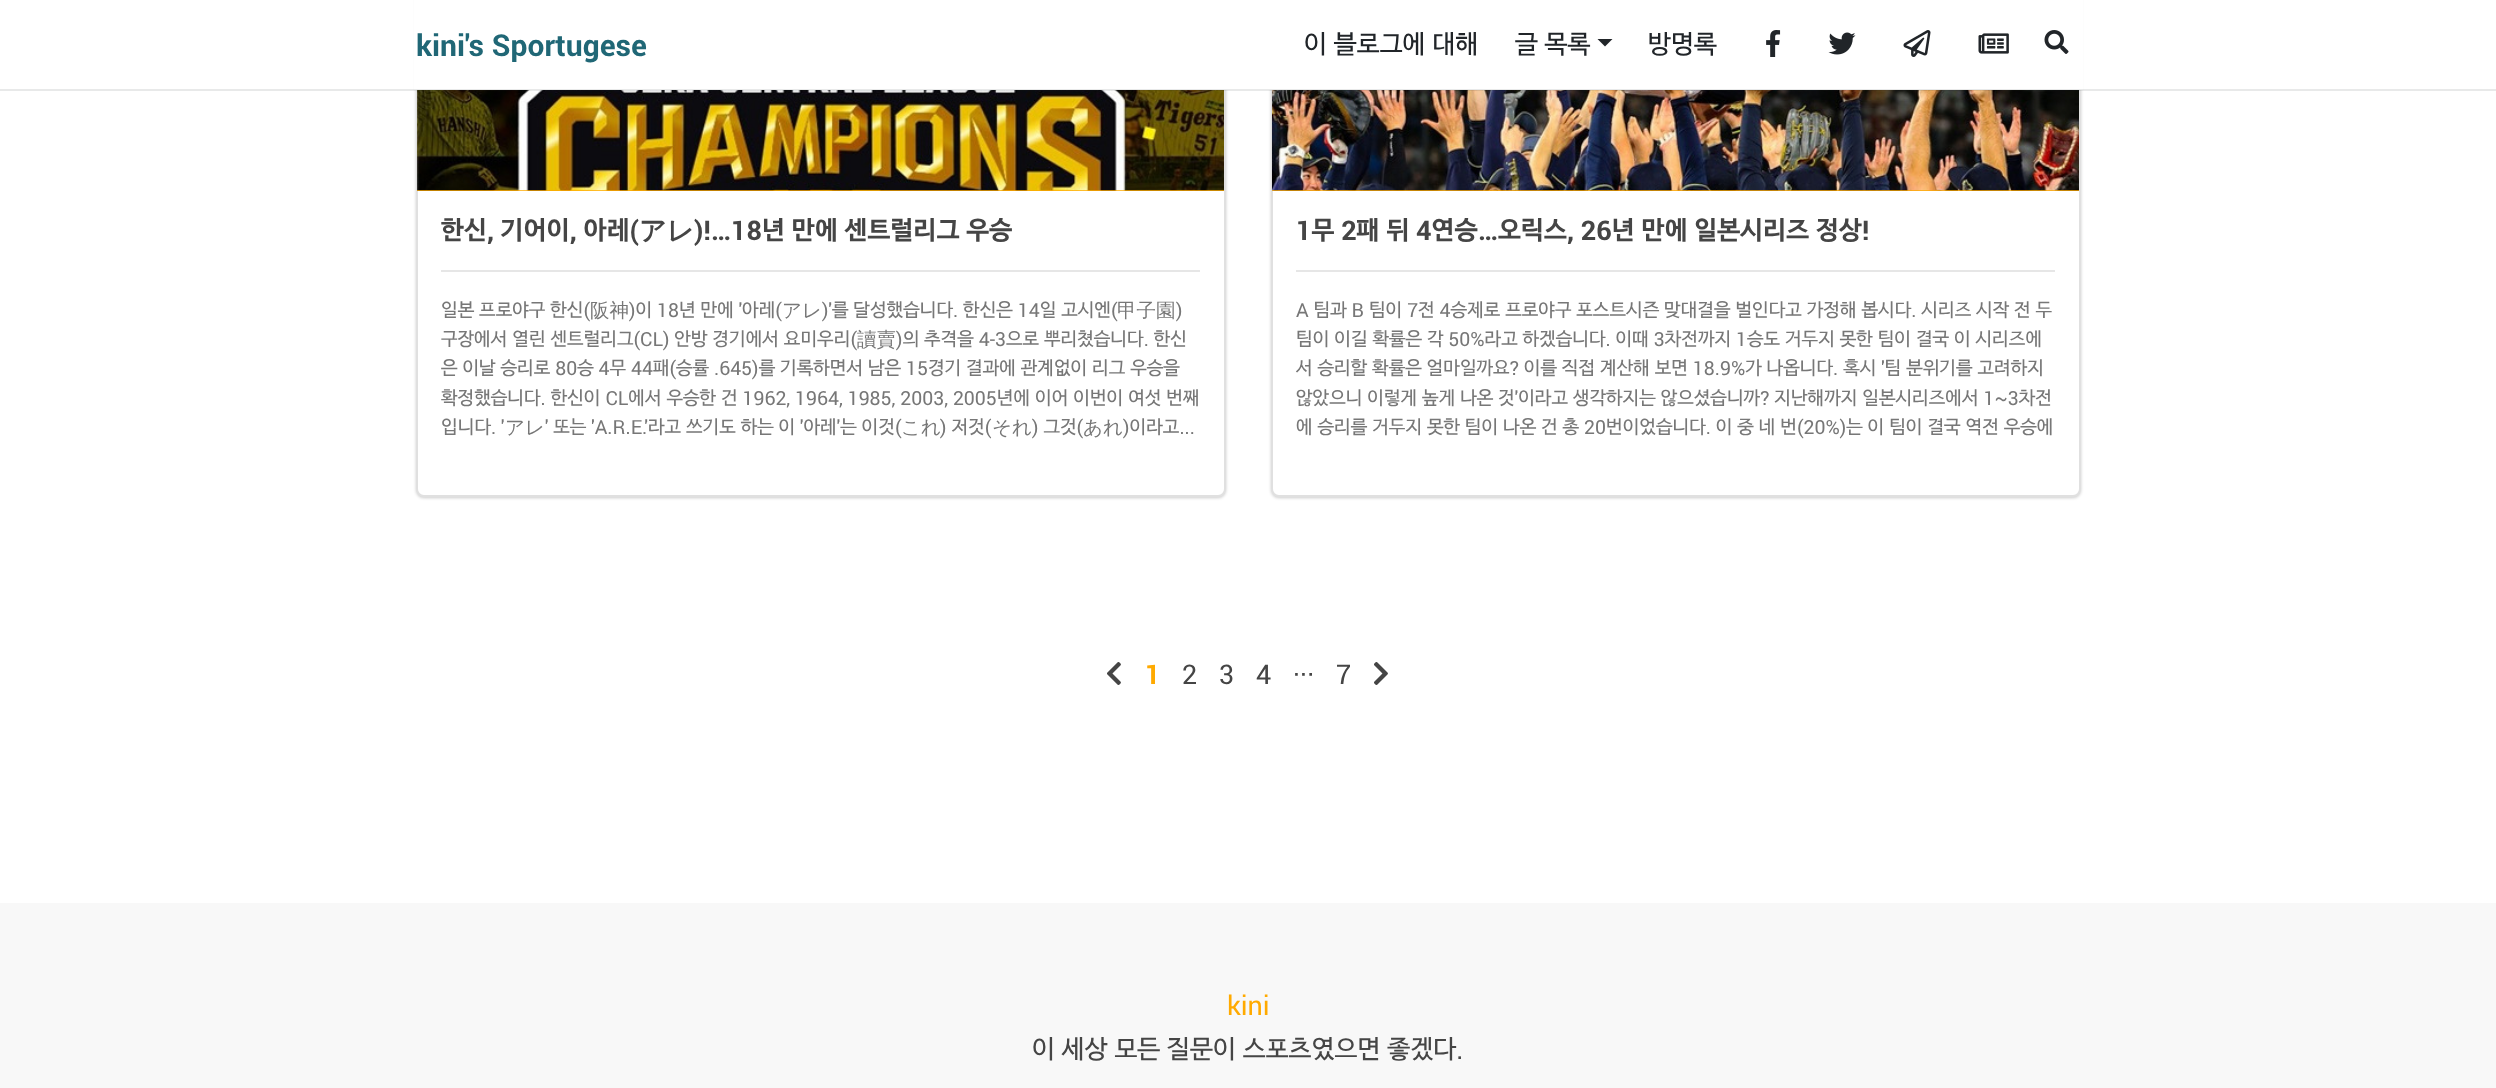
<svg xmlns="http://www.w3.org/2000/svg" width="2496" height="1088">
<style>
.a{font:bold 30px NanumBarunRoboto;fill:#206776}
.b{font:27px NanumBarunRoboto;fill:#212529}
.c{font:bold 27px NanumBarunRoboto;fill:#454545}
.d{font:bold 27px WenQuanYi Zen Hei;fill:#454545}
.e{font:bold 27px Roboto;fill:#454545}
.f{font:19.5px NanumBarunRoboto;fill:#777}
.g{font:500 19.5px WenQuanYi Zen Hei;fill:#777}
.h{font:bold 27px NanumBarunRoboto;fill:#fa0}
.i{font:27px NanumBarunRoboto;fill:#454545}
.j{font:27px NanumBarunRoboto;fill:#fa0}
</style>
<rect width="100%" height="100%" fill="#fff"/>
<rect fill="#00000033" filter="blur(1.5px)" x="416" y="-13" width="810" height="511" rx="8"/>
<rect fill="#fff" x="416" y="-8" width="810" height="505" rx="8"/>
<rect fill="none" stroke="#0000001f" stroke-width="2" x="417" y="-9" width="808" height="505" rx="7"/>
<rect fill="#00000033" filter="blur(1.5px)" x="1271" y="-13" width="810" height="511" rx="8"/>
<rect fill="#fff" x="1271" y="-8" width="810" height="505" rx="8"/>
<rect fill="none" stroke="#0000001f" stroke-width="2" x="1272" y="-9" width="808" height="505" rx="7"/>
<path fill="#fff" d="M414 0h1669v90H414z"/>
<path fill="#fa0" d="M417 190h807v1H417z"/>
<image href="6.png" x="417" y="90" width="807" height="101"/>
<path fill="#fa0" d="M1272 190h807v1H1272z"/>
<image href="7.png" x="1272" y="90" width="807" height="101"/>
<path fill="#2125291a" d="M0 89h2496v2H0z"/>
<path fill="#212529" d="M1597.5 39h15l-7.5 7.5z"/>
<image href="1.png" x="1766" y="30" width="15" height="27"/>
<image href="2.png" x="1828" y="32" width="28" height="23"/>
<image href="3.png" x="1903" y="30" width="28" height="27"/>
<image href="4.png" x="1978" y="33" width="31" height="21"/>
<image href="5.png" x="2044" y="30" width="25" height="24"/>
<path fill="#e6e6e6" d="M441 270h759v2H441z"/>
<path fill="#e6e6e6" d="M1296 270h759v2H1296z"/>
<image href="8.png" x="1107" y="662" width="14" height="23"/>
<image href="9.png" x="1374" y="662" width="14" height="23"/>
<path fill="#f8f8f8" d="M0 903h2496v185H0z"/>
<text class="a" x="416" y="56">kini's Sportugese</text>
<text class="b" x="1304" y="54">이 블로그에 대해</text>
<text class="b" x="1515" y="54">글 목록</text>
<text class="b" x="1648" y="54">방명록</text>
<text class="c" x="441" y="240">한신, 기어이, 아레(</text>
<text class="d" x="639" y="240">アレ</text>
<text class="c" x="694" y="240">)!</text>
<text class="e" x="711" y="240">…</text>
<text class="c" x="731" y="240">18년 만에 센트럴리그 우승</text>
<text class="f" x="441" y="317">일본 프로야구 한신(</text>
<text class="g" x="590" y="317">阪神</text>
<text class="f" x="629" y="317">)이 18년 만에 '아레(</text>
<text class="g" x="782" y="317">アレ</text>
<text class="f" x="822" y="317">)'를 달성했습니다. 한신은 14일 고시엔(</text>
<text class="g" x="1117" y="317">甲子園</text>
<text class="f" x="1176" y="317">)</text>
<text class="f" x="441" y="346">구장에서 열린 센트럴리그(CL) 안방 경기에서 요미우리(</text>
<text class="g" x="857" y="346">讀賣</text>
<text class="f" x="896" y="346">)의 추격을 4-3으로 뿌리쳤습니다. 한신</text>
<text class="f" x="441" y="375">은 이날 승리로 80승 4무 44패(승률 .645)를 기록하면서 남은 15경기 결과에 관계없이 리그 우승을</text>
<text class="f" x="441" y="405">확정했습니다. 한신이 CL에서 우승한 건 1962, 1964, 1985, 2003, 2005년에 이어 이번이 여섯 번째</text>
<text class="f" x="441" y="434">입니다. '</text>
<text class="g" x="505" y="434">アレ</text>
<text class="f" x="545" y="434">' 또는 'A.R.E.'라고 쓰기도 하는 이 '아레'는 이것(</text>
<text class="g" x="901" y="434">これ</text>
<text class="f" x="940" y="434">) 저것(</text>
<text class="g" x="992" y="434">それ</text>
<text class="f" x="1032" y="434">) 그것(</text>
<text class="g" x="1083" y="434">あれ</text>
<text class="f" x="1123" y="434">)이라고...</text>
<text class="c" x="1296" y="240">1무 2패 뒤 4연승</text>
<text class="e" x="1478" y="240">…</text>
<text class="c" x="1498" y="240">오릭스, 26년 만에 일본시리즈 정상!</text>
<text class="f" x="1296" y="317">A 팀과 B 팀이 7전 4승제로 프로야구 포스트시즌 맞대결을 벌인다고 가정해 봅시다. 시리즈 시작 전 두</text>
<text class="f" x="1296" y="346">팀이 이길 확률은 각 50%라고 하겠습니다. 이때 3차전까지 1승도 거두지 못한 팀이 결국 이 시리즈에</text>
<text class="f" x="1296" y="375">서 승리할 확률은 얼마일까요? 이를 직접 계산해 보면 18.9%가 나옵니다. 혹시 '팀 분위기를 고려하지</text>
<text class="f" x="1296" y="405">않았으니 이렇게 높게 나온 것'이라고 생각하지는 않으셨습니까? 지난해까지 일본시리즈에서 1~3차전</text>
<text class="f" x="1296" y="434">에 승리를 거두지 못한 팀이 나온 건 총 20번이었습니다. 이 중 네 번(20%)는 이 팀이 결국 역전 우승에</text>
<text class="h" x="1145" y="684">1</text>
<text class="i" x="1182" y="684">2</text>
<text class="i" x="1219" y="684">3</text>
<text class="i" x="1256" y="684">4</text>
<text class="i" x="1293" y="684">···</text>
<text class="i" x="1336" y="684">7</text>
<text class="j" x="1227" y="1015">kini</text>
<text class="i" x="1032" y="1059">이 세상 모든 질문이 스포츠였으면 좋겠다.</text>
</svg>
